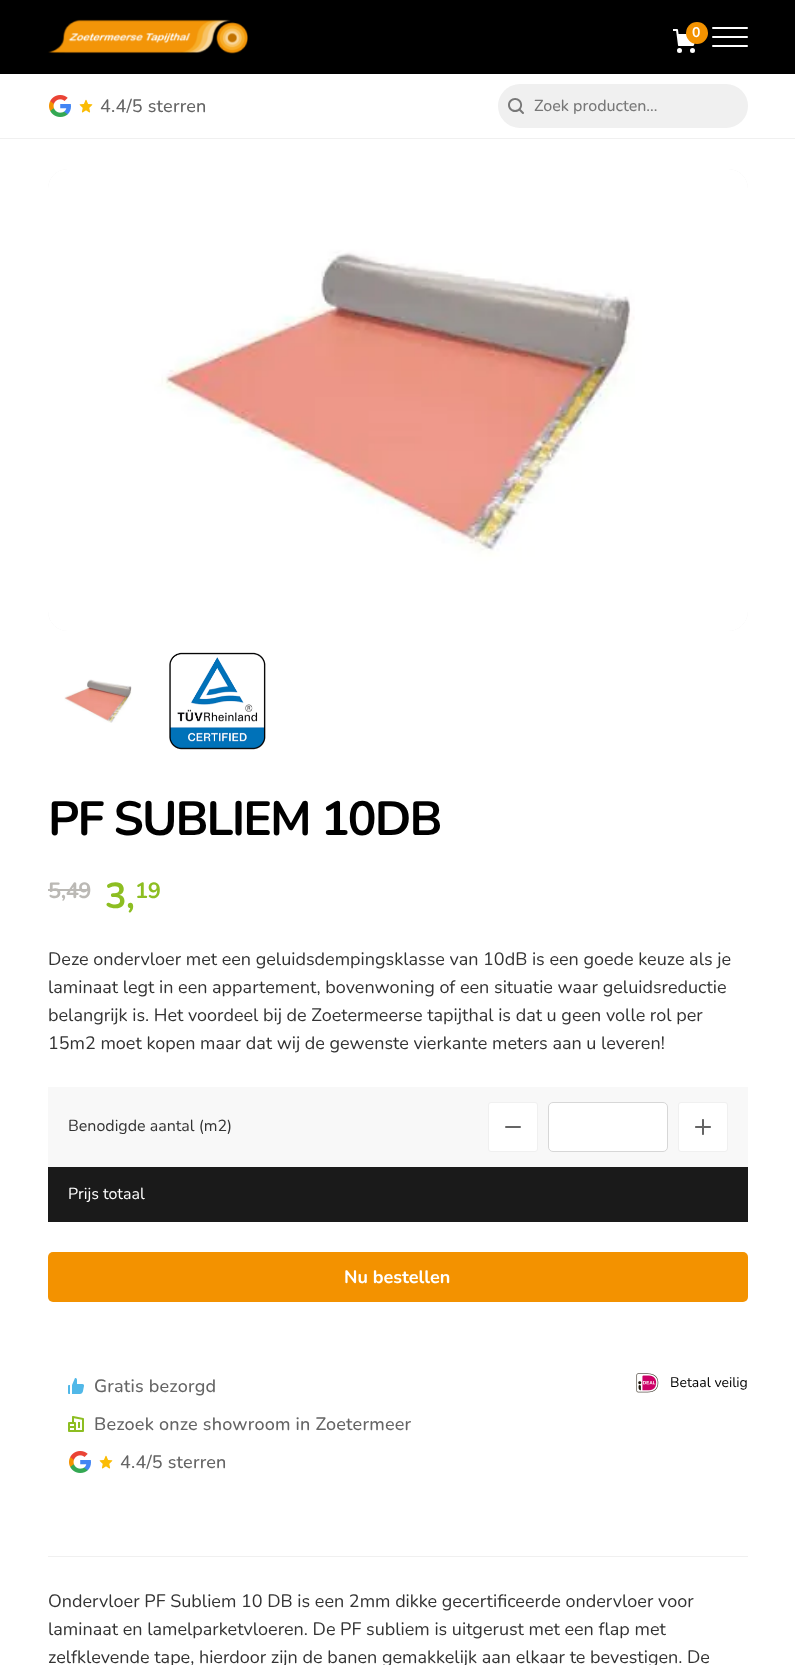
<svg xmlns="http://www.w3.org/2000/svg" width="795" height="1665">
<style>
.a{font:bold 14px Nunito;fill:#fff}
.b{font:500 18px Nunito;letter-spacing:0.2px;fill:#656565}
.c{font:500 16px Nunito;fill:#787878}
.d{font:bold 48px Nunito;letter-spacing:-1.9px;fill:#000}
.e{font:bold 22px Nunito;letter-spacing:-0.5px;fill:#bbb9b5}
.f{font:bold 36px Nunito;letter-spacing:-0.5px;fill:#8dbe22}
.g{font:bold 22px Nunito;letter-spacing:-0.5px;fill:#8dbe22}
.h{font:18px Nunito;fill:#333}
.i{font:16px Nunito;fill:#333}
.j{font:16px Nunito;fill:#fff}
.k{font:bold 18px Nunito;fill:#fff}
.l{font:14px Nunito;fill:#000}
</style>
<rect width="100%" height="100%" fill="#fff"/>
<path fill="#000" d="M0 0h795v74H0z"/>
<image href="1.png" x="48" y="19" width="200" height="35"/>
<image href="2.png" x="673" y="29" width="22" height="24"/>
<circle fill="#f39200" cx="697" cy="33" r="11"/>
<rect fill="#fff" x="712" y="36" width="36" height="2" rx="1"/>
<rect fill="#fff" x="712" y="27" width="36" height="2" rx="1"/>
<rect fill="#fff" x="712" y="45" width="36" height="2" rx="1"/>
<path fill="#f0f0f0" d="M0 138h795v1H0z"/>
<image href="3.png" x="49" y="95" width="22" height="22"/>
<image href="4.png" x="79" y="99" width="14" height="14"/>
<rect fill="#f0f0f0" x="498" y="84" width="250" height="44" rx="22"/>
<image href="5.png" x="508" y="98" width="16" height="16"/>
<rect fill="#f0f0f0" x="48" y="169" width="700" height="462" rx="20"/>
<image href="6.png" x="48" y="169" width="700" height="462"/>
<image href="7.png" x="64" y="679" width="68" height="44"/>
<image href="8.png" x="169" y="652" width="97" height="98"/>
<path fill="#bbb9b5" d="M48 889h42v2H48z"/>
<path fill="#f8f8f8" d="M48 1087h700v80H48z"/>
<rect fill="#fff" stroke="#f0f0f0" x="488.5" y="1102.5" width="49" height="49" rx="2.5"/>
<image href="9.png" x="505" y="1126" width="16" height="2"/>
<rect fill="#fff" stroke="#d7d7d7" x="548.5" y="1102.5" width="119" height="49" rx="4.5"/>
<rect fill="#fff" stroke="#f0f0f0" x="678.5" y="1102.5" width="49" height="49" rx="2.5"/>
<image href="10.png" x="695" y="1119" width="16" height="16"/>
<path fill="#1a1a1a" d="M48 1167h700v55H48z"/>
<rect fill="#f39200" x="48" y="1252" width="700" height="50" rx="5"/>
<path fill="#f0f0f0" d="M48 1556h700v1H48z"/>
<image href="11.png" x="68" y="1378" width="16" height="16"/>
<image href="12.png" x="68" y="1416" width="16" height="16"/>
<image href="3.png" x="69" y="1451" width="22" height="22"/>
<image href="4.png" x="99" y="1455" width="14" height="14"/>
<image href="13.png" x="636" y="1373" width="23" height="20"/>
<text class="a" x="692" y="37">0</text>
<text class="b" x="100" y="112">4.4/5 sterren</text>
<text class="c" x="534" y="111">Zoek producten…</text>
<text class="d" x="48" y="835">PF SUBLIEM 10DB</text>
<text class="e" x="48" y="898">5,49</text>
<text class="f" x="105" y="908">3,</text>
<text class="g" x="135" y="898">19</text>
<text class="h" x="48" y="965">Deze ondervloer met een geluidsdempingsklasse van 10dB is een goede keuze als je</text>
<text class="h" x="48" y="993">laminaat legt in een appartement, bovenwoning of een situatie waar geluidsreductie</text>
<text class="h" x="48" y="1021">belangrijk is. Het voordeel bij de Zoetermeerse tapijthal is dat u geen volle rol per</text>
<text class="h" x="48" y="1049">15m2 moet kopen maar dat wij de gewenste vierkante meters aan u leveren!</text>
<text class="i" x="68" y="1131">Benodigde aantal (m2)</text>
<text class="j" x="68" y="1199">Prijs totaal</text>
<text class="k" x="344" y="1283">Nu bestellen</text>
<text class="b" x="94" y="1392">Gratis bezorgd</text>
<text class="b" x="94" y="1430">Bezoek onze showroom in Zoetermeer</text>
<text class="b" x="120" y="1468">4.4/5 sterren</text>
<text class="l" x="670" y="1387">Betaal veilig</text>
<text class="h" x="48" y="1607">Ondervloer PF Subliem 10 DB is een 2mm dikke gecertificeerde ondervloer voor</text>
<text class="h" x="48" y="1635">laminaat en lamelparketvloeren. De PF subliem is uitgerust met een flap met</text>
<text class="h" x="48" y="1663">zelfklevende tape, hierdoor zijn de banen gemakkelijk aan elkaar te bevestigen. De</text>
</svg>
